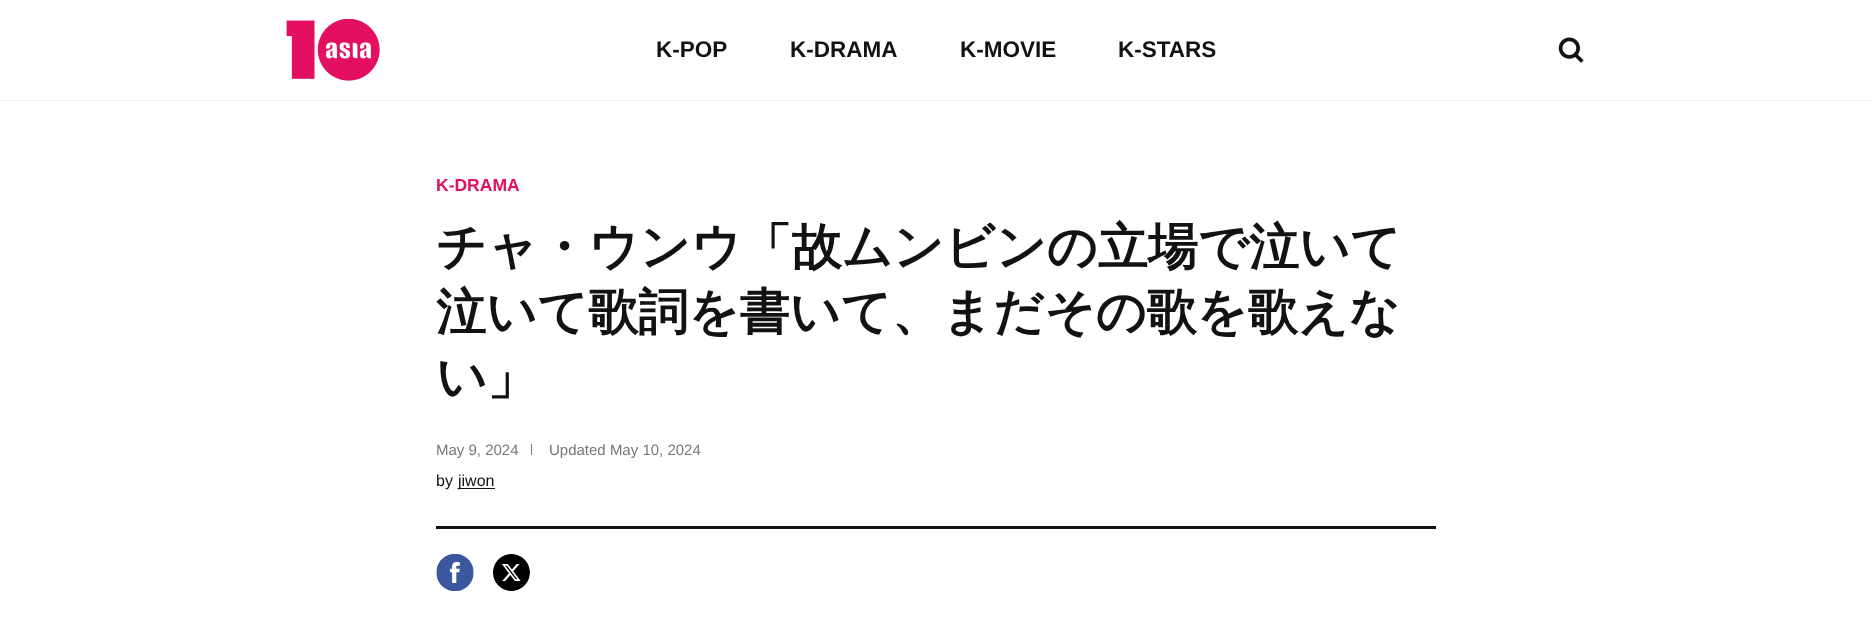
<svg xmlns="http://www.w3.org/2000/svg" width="1872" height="617">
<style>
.a{font:bold 22.5px Liberation Sans;fill:#121212}
.b{font:bold 17.5px Liberation Sans;fill:#e30f61}
.c{font:bold 50px WenQuanYi Zen Hei;fill:#121212}
.d{font:15px Liberation Sans;fill:#757777}
.e{font:16px Liberation Sans;fill:#121212}
</style>
<rect width="100%" height="100%" fill="#fff"/>
<path fill="#eee" d="M0 100h1872v1H0z"/>
<image href="1.png" x="286" y="19" width="94" height="62"/>
<image href="2.png" x="1558" y="37" width="26" height="26"/>
<path fill="#121212" d="M436 526h1000v3H436z"/>
<path fill="#777" d="M531 444h1v11H531z"/>
<path fill="#121212" d="M458 488h37v1H458z"/>
<image href="3.png" x="436" y="554" width="38" height="37"/>
<image href="4.png" x="493" y="554" width="37" height="37"/>
<text class="a" x="656" y="57">K-POP</text>
<text class="a" x="790" y="57">K-DRAMA</text>
<text class="a" x="960" y="57">K-MOVIE</text>
<text class="a" x="1118" y="57">K-STARS</text>
<text class="b" x="436" y="191">K-DRAMA</text>
<text class="c" x="436" y="264">チャ・ウンウ「故ムンビンの立場で泣いて</text>
<text class="c" x="436" y="329">泣いて歌詞を書いて、まだその歌を歌えな</text>
<text class="c" x="436" y="394">い」</text>
<text class="d" x="436" y="455">May 9, 2024</text>
<text class="d" x="549" y="455">Updated May 10, 2024</text>
<text class="e" x="436" y="486">by</text>
<text class="e" x="458" y="486">jiwon</text>
</svg>
